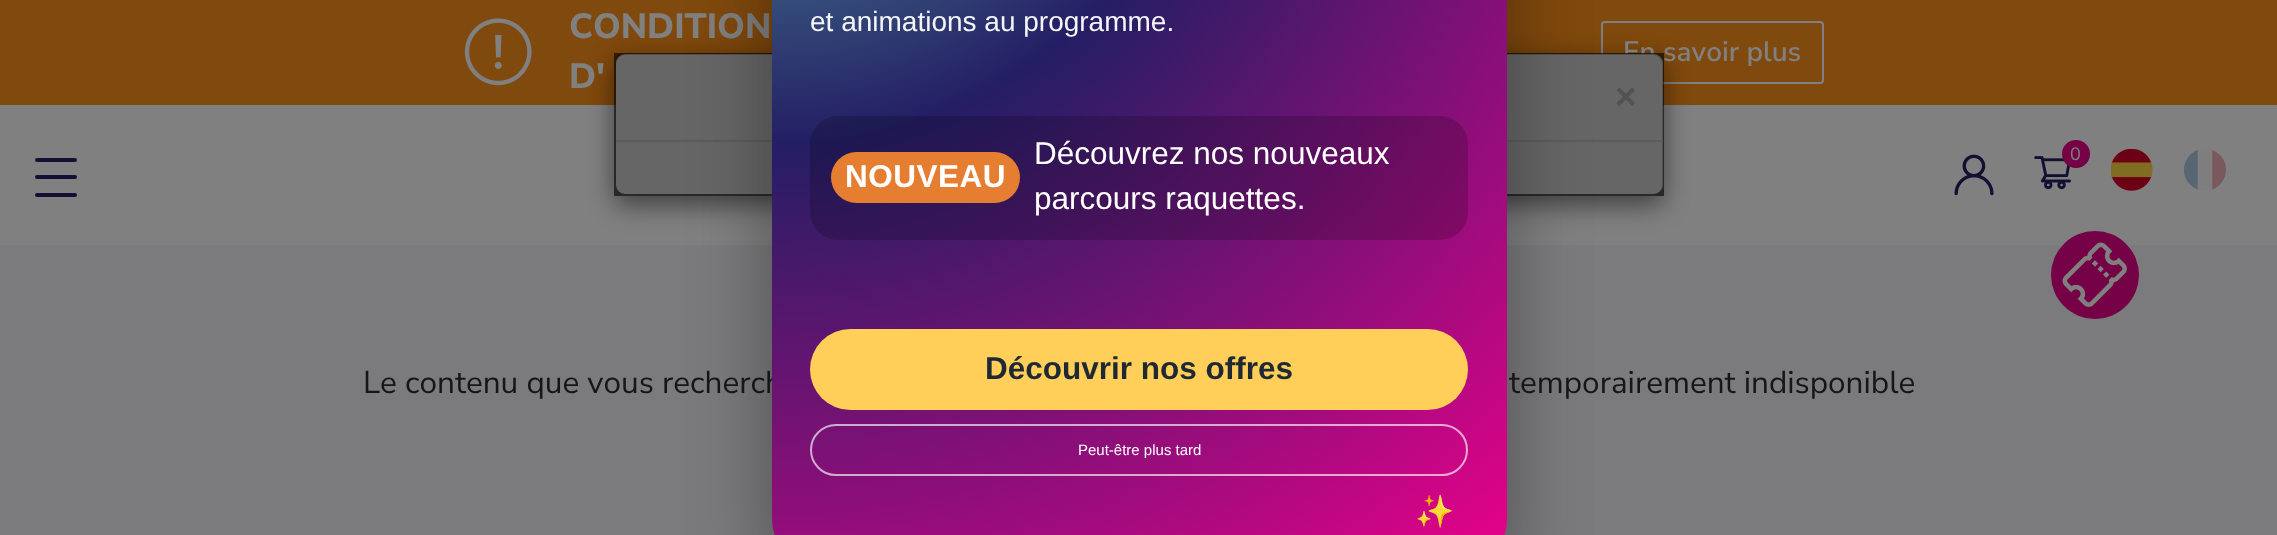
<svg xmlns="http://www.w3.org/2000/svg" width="2277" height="535">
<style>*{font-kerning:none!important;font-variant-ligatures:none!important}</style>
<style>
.a{font:800 35px Nunito Sans;fill:#808080}
.b{font:600 28px Nunito Sans;fill:#808080}
.c{font:bold 37px Liberation Sans;fill:#ccc}
.d{font:18px Nunito Sans;fill:#808080}
.e{font:31.5px Nunito Sans;fill:#161517}
.f{font:28px Liberation Sans;fill:#f4f5f8}
.g{font:31.5px Noto Color Emoji;fill:#e369b6}
.h{font:15px Liberation Sans;fill:#fff}
.i{font:bold 31.5px Liberation Sans;fill:#1f2933}
.j{font:31.5px Liberation Sans;fill:#fff}
.k{font:bold 31.5px Liberation Sans;letter-spacing:0.5px;fill:#fff}
</style>
<defs>
<clipPath id="clip1"><path d="M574 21h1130v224h-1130zm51 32h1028c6 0 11 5 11 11v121c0 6-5 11-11 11h-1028c-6 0-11-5-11-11v-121c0-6 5-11 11-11z" clip-rule="evenodd"/></clipPath>
<radialGradient id="g1" gradientUnits="userSpaceOnUse" cx="772" cy="-313" r="1143"><stop offset="0" stop-color="#57aea7"/><stop offset="0.4" stop-color="#241e64"/><stop offset="1" stop-color="#e9018b"/></radialGradient>
</defs>
<rect width="100%" height="100%" fill="#7b7b7d"/>
<path fill="#80490d" d="M0 0h2277v105H0z"/>
<rect fill="none" stroke="#808080" stroke-width="2" x="1602" y="22" width="221" height="61" rx="3"/>
<path fill="#808080" d="M0 105h2277v140H0z"/>
<g clip-path="url(#clip1)">
<rect fill="#00000080" filter="blur(13px)" x="614" y="61" width="1050" height="144" rx="11"/>
</g>
<image href="1.png" x="464" y="18" width="68" height="68"/>
<image href="2.png" x="1954" y="154" width="40" height="42"/>
<image href="3.png" x="2034" y="156" width="37" height="34"/>
<circle fill="#750146" stroke="#750146" stroke-width="2" cx="2076" cy="154" r="13"/>
<image href="4.png" x="2111" y="149" width="42" height="42"/>
<image href="5.png" x="2184" y="149" width="42" height="42"/>
<circle fill="#750146" cx="2095" cy="275" r="44"/>
<image href="6.png" x="2062" y="242" width="65" height="65"/>
<rect fill="#120f32" x="35" y="158" width="42" height="4" rx="2"/>
<rect fill="#120f32" x="35" y="175" width="42" height="4" rx="2"/>
<rect fill="#120f32" x="35" y="193" width="42" height="4" rx="2"/>
<text class="a" x="569" y="38">CONDITION</text>
<text class="a" x="569" y="88">D'</text>
<text class="b" x="1623" y="61">En savoir plus</text>
<rect fill="#fff" x="616" y="54" width="1047" height="140" rx="9"/>
<rect fill="none" stroke="#00000033" stroke-width="2" x="615" y="54" width="1048" height="141" rx="10"/>
<text class="c" x="1615" y="109">×</text>
<path fill="#e5e5e5" d="M616 140h1047v2H616z"/>
<path fill="#00000099" d="M614 53h1050v143H614z"/>
<rect fill="#00000059" filter="blur(39.5px)" x="772" y="-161" width="735" height="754" rx="42"/>
<text class="d" x="2070" y="160">0</text>
<text class="e" x="363" y="393">Le contenu que vous recherch</text>
<rect fill="url(#g1)" x="772" y="-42" width="735" height="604" rx="42"/>
<text class="f" x="810" y="31">et animations au programme.</text>
<text class="g" x="1415" y="522">✨</text>
<rect fill="none" stroke="#ffffffa6" stroke-width="2" x="811" y="425" width="656" height="50" rx="25"/>
<text class="h" x="1078" y="455">Peut-être plus tard</text>
<rect fill="#ffcf5a" x="810" y="329" width="658" height="81" rx="40.5"/>
<text class="i" x="985" y="379">Découvrir nos offres</text>
<rect fill="#0000002e" x="810" y="116" width="658" height="124" rx="28"/>
<text class="j" x="1034" y="209">parcours raquettes.</text>
<text class="j" x="1034" y="164">Découvrez nos nouveaux</text>
<rect fill="#f0842ff2" x="831" y="152" width="189" height="51" rx="25.5"/>
<text class="k" x="845" y="187">NOUVEAU</text>
<text class="e" x="1509" y="393">temporairement indisponible</text>
</svg>
